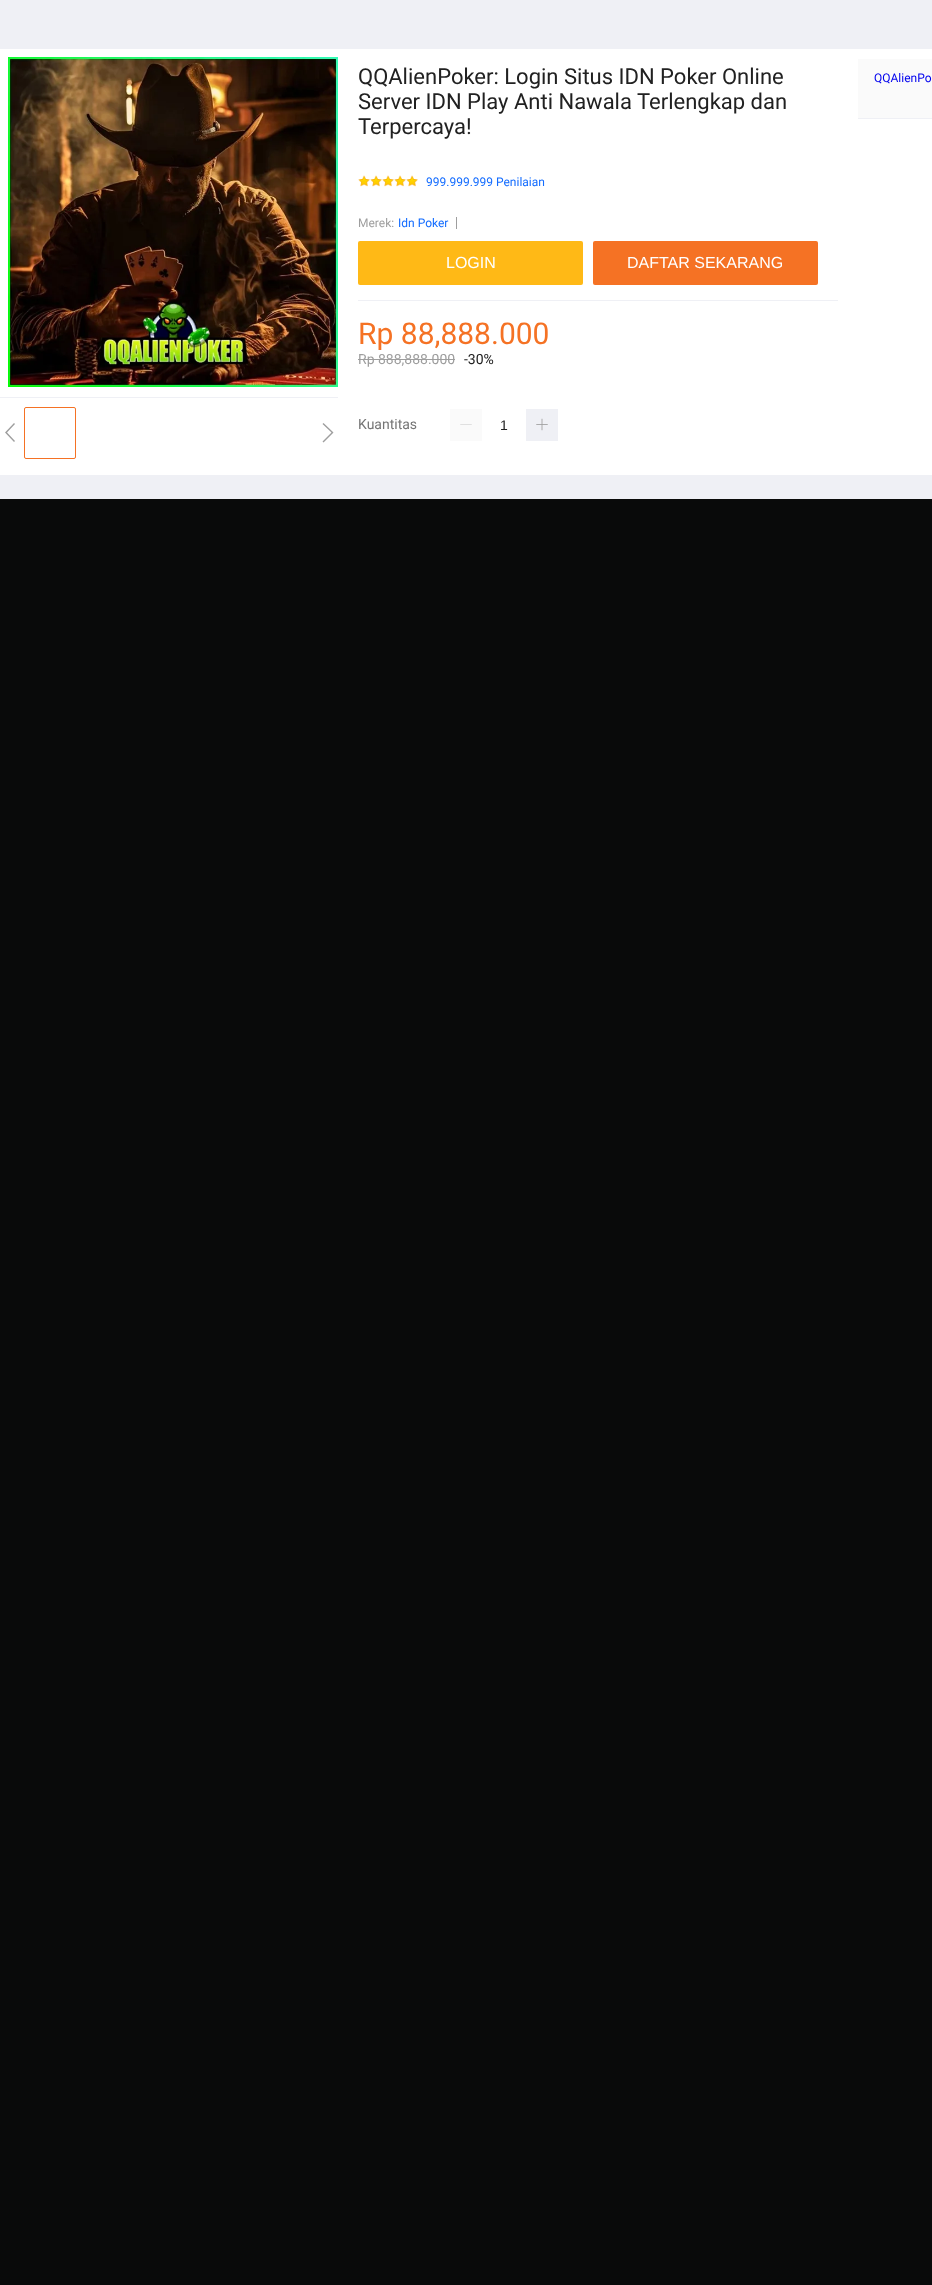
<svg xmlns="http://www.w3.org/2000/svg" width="932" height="2285">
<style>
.a{font:22px Roboto;fill:#212121}
.b{font:12px Roboto;fill:#136cff}
.c{font:12px Roboto;fill:#9e9e9e}
.d{font:16px Liberation Sans;fill:#fff}
.e{font:30px Roboto;fill:#f57224}
.f{font:14px Roboto;fill:#9e9e9e}
.g{font:14px Roboto;fill:#212121}
.h{font:14px Roboto;fill:#757575}
.i{font:14px Liberation Sans;fill:#212121}
.j{font:12px Roboto;fill:#00e}
</style>
<rect width="100%" height="100%" fill="#090a0a"/>
<path fill="#eff0f5" d="M0 0h932v49H0z"/>
<path fill="#eff0f5" d="M0 475h932v24H0z"/>
<path fill="#fff" d="M0 49h932v426H0z"/>
<path fill="#eff0f5" d="M0 397h338v1H0z"/>
<image href="1.png" x="8" y="57" width="330" height="330"/>
<path fill="#9e9e9e" d="M15 441l-8-8.5l8-8.5l-1-1l-9 9.5l9 9.5z"/>
<rect fill="none" stroke="#f57224" x="24.5" y="407.5" width="51" height="51" rx="1.5"/>
<path fill="#9e9e9e" d="M323.5 442.5l-1-1l9-9l-9-8.5l1-1l10 9.5z"/>
<image href="2.png" x="358" y="175" width="12" height="12"/>
<image href="2.png" x="370" y="175" width="12" height="12"/>
<image href="2.png" x="382" y="175" width="12" height="12"/>
<image href="2.png" x="394" y="175" width="12" height="12"/>
<image href="2.png" x="406" y="175" width="12" height="12"/>
<path fill="#eff0f5" d="M358 300h480v1H358z"/>
<path fill="#9e9e9e" d="M456 217h1v12H456z"/>
<rect fill="#ffb916" x="358" y="241" width="225" height="44" rx="2"/>
<rect fill="#f57224" x="593" y="241" width="225" height="44" rx="2"/>
<path fill="#9e9e9e" d="M358 359h97v1H358z"/>
<path fill="#fafafa" d="M450 409h32v32H450z"/>
<image href="3.png" x="460" y="424" width="12" height="1"/>
<path fill="#eff0f5" d="M526 409h32v32H526z"/>
<image href="4.png" x="536" y="418" width="12" height="13"/>
<path fill="#fafafa" d="M858 59h74v59H858z"/>
<path fill="#eff0f5" d="M858 118h74v1H858z"/>
<text class="a" x="358" y="84">QQAlienPoker: Login Situs IDN Poker Online</text>
<text class="a" x="358" y="109">Server IDN Play Anti Nawala Terlengkap dan</text>
<text class="a" x="358" y="134">Terpercaya!</text>
<text class="b" x="426" y="186">999.999.999 Penilaian</text>
<text class="c" x="358" y="227">Merek:</text>
<text class="b" x="398" y="227">Idn Poker</text>
<text class="d" x="446" y="268">LOGIN</text>
<text class="d" x="627" y="268">DAFTAR SEKARANG</text>
<text class="e" x="358" y="344">Rp 88,888.000</text>
<text class="f" x="358" y="364">Rp 888,888.000</text>
<text class="g" x="464" y="364">-30%</text>
<text class="h" x="358" y="429">Kuantitas</text>
<text class="i" x="500" y="430">1</text>
<text class="j" x="874" y="82">QQAlienPo</text>
</svg>
